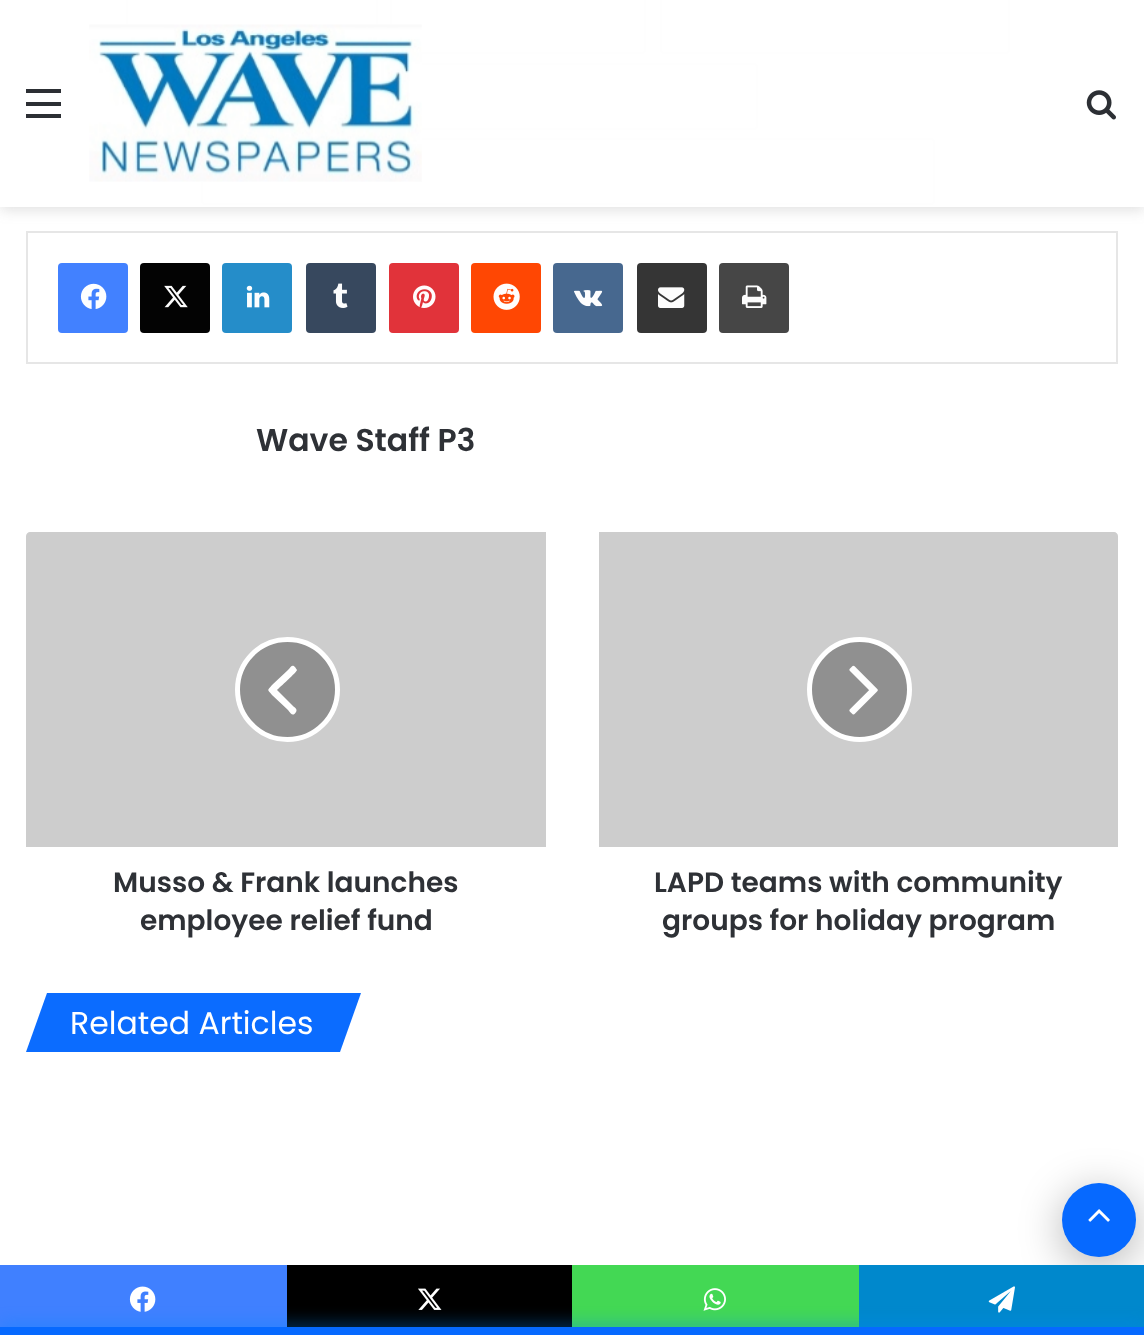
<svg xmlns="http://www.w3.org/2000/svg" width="1144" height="1335">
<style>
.a{font:600 31.5px Poppins;fill:#2e3136}
.b{font:600 28px Poppins;fill:#2e3136}
.c{font:31.5px Poppins;fill:#fff}
</style>
<defs>
<clipPath id="clip1"><path d="M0 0h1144v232h-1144zm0 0h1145v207h-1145z" clip-rule="evenodd"/></clipPath>
</defs>
<rect width="100%" height="100%" fill="#fff"/>
<path fill="#f7f7f7" d="M126 0h252v25H126z"/>
<path fill="none" stroke="#0303031a" stroke-width="2" d="M127 -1h250v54H127z"/>
<rect fill="#f7f7f7" x="390" y="-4" width="256" height="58" rx="4"/>
<rect fill="none" stroke="#0303031a" stroke-width="2" x="391" y="-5" width="254" height="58" rx="3"/>
<rect fill="#f7f7f7" x="660" y="-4" width="350" height="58" rx="4"/>
<rect fill="none" stroke="#0303031a" stroke-width="2" x="661" y="-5" width="348" height="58" rx="3"/>
<rect fill="#f7f7f7" x="378" y="63" width="380" height="67" rx="4"/>
<rect fill="none" stroke="#0303031a" stroke-width="2" x="379" y="64" width="378" height="65" rx="3"/>
<rect fill="#f7f7f7" x="201" y="138" width="734" height="67" rx="4"/>
<rect fill="none" stroke="#0303031a" stroke-width="2" x="202" y="139" width="732" height="65" rx="3"/>
<path fill="none" stroke="#e6e6e6" stroke-width="2" d="M27 232h1090v131H27z"/>
<g clip-path="url(#clip1)">
<path fill="#63636333" filter="blur(7px)" d="M0 4h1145v206H0z"/>
</g>
<path fill="#fffffff2" d="M0 0h1144v207H0z"/>
<path fill="#2c2f34" d="M26 102h35v4H26z"/>
<path fill="#2c2f34" d="M26 89h35v4H26z"/>
<path fill="#2c2f34" d="M26 114h35v4H26z"/>
<image href="1.png" x="89" y="24" width="333" height="158"/>
<image href="2.png" x="1086" y="90" width="30" height="30"/>
<rect fill="#4281ff" x="58" y="263" width="70" height="70" rx="4"/>
<image href="3.png" x="80" y="283" width="27" height="26"/>
<rect fill="#030303" x="140" y="263" width="70" height="70" rx="4"/>
<image href="4.png" x="164" y="285" width="24" height="23"/>
<rect fill="#258dc9" x="222" y="263" width="70" height="70" rx="4"/>
<image href="5.png" x="246" y="285" width="24" height="23"/>
<rect fill="#37485e" x="306" y="263" width="70" height="70" rx="4"/>
<image href="6.png" x="333" y="283" width="15" height="25"/>
<rect fill="#e1333a" x="389" y="263" width="70" height="70" rx="4"/>
<image href="7.png" x="413" y="285" width="23" height="23"/>
<rect fill="#ff4703" x="471" y="263" width="70" height="70" rx="4"/>
<image href="8.png" x="493" y="283" width="27" height="27"/>
<rect fill="#47688f" x="553" y="263" width="70" height="70" rx="4"/>
<image href="9.png" x="574" y="290" width="29" height="17"/>
<rect fill="#353535" x="637" y="263" width="70" height="70" rx="4"/>
<image href="10.png" x="658" y="287" width="27" height="21"/>
<rect fill="#464646" x="719" y="263" width="70" height="70" rx="4"/>
<image href="11.png" x="742" y="285" width="25" height="23"/>
<path fill="#cdcdcd" d="M30 532h516v315h-520v-311c0-2 2-4 4-4z"/>
<circle fill="#909090" stroke="#fff" stroke-width="5" cx="287.5" cy="689.5" r="50"/>
<path fill="#fff" d="M297 670c0 2-18 18-20 20l16 16c1 1 5 3 3 6c-3 5-5 2-8-2l-16-15c-5-6-5-4 0-10l16-15c3-3 4-6 7-3z"/>
<path fill="#cdcdcd" d="M599 532h515c2 0 4 2 4 4v311h-519z"/>
<circle fill="#909090" stroke="#fff" stroke-width="5" cx="859.5" cy="689.5" r="50"/>
<image href="12.png" x="849" y="665" width="29" height="50"/>
<path fill="#0b6cff" d="M47 993h314l-21 59h-314z"/>
<rect fill="#0000004d" filter="blur(22px)" x="1062" y="1192" width="74" height="73" rx="36.5"/>
<circle fill="#0669ff" cx="1099" cy="1220" r="37"/>
<image href="13.png" x="1088" y="1209" width="22" height="13"/>
<path fill="#4080ff" d="M0 1265h287v62H0z"/>
<image href="14.png" x="129" y="1286" width="27" height="26"/>
<path fill="#000" d="M287 1265h285v62H287z"/>
<image href="15.png" x="418" y="1288" width="24" height="22"/>
<path fill="#43d854" d="M572 1265h287v62H572z"/>
<image href="16.png" x="703" y="1288" width="23" height="23"/>
<path fill="#08c" d="M859 1265h285v62H859z"/>
<image href="17.png" x="988" y="1286" width="27" height="27"/>
<path fill="#0088ffb3" filter="blur(9px)" d="M0 1327h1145v8H0z"/>
<path fill="#0669ff" d="M0 1327h1144v8H0z"/>
<text class="a" x="256" y="451">Wave Staff P3</text>
<text class="b" x="113" y="892">Musso &amp; Frank launches</text>
<text class="b" x="140" y="930">employee relief fund</text>
<text class="b" x="654" y="892">LAPD teams with community</text>
<text class="b" x="662" y="930">groups for holiday program</text>
<text class="c" x="70" y="1034">Related Articles</text>
</svg>
